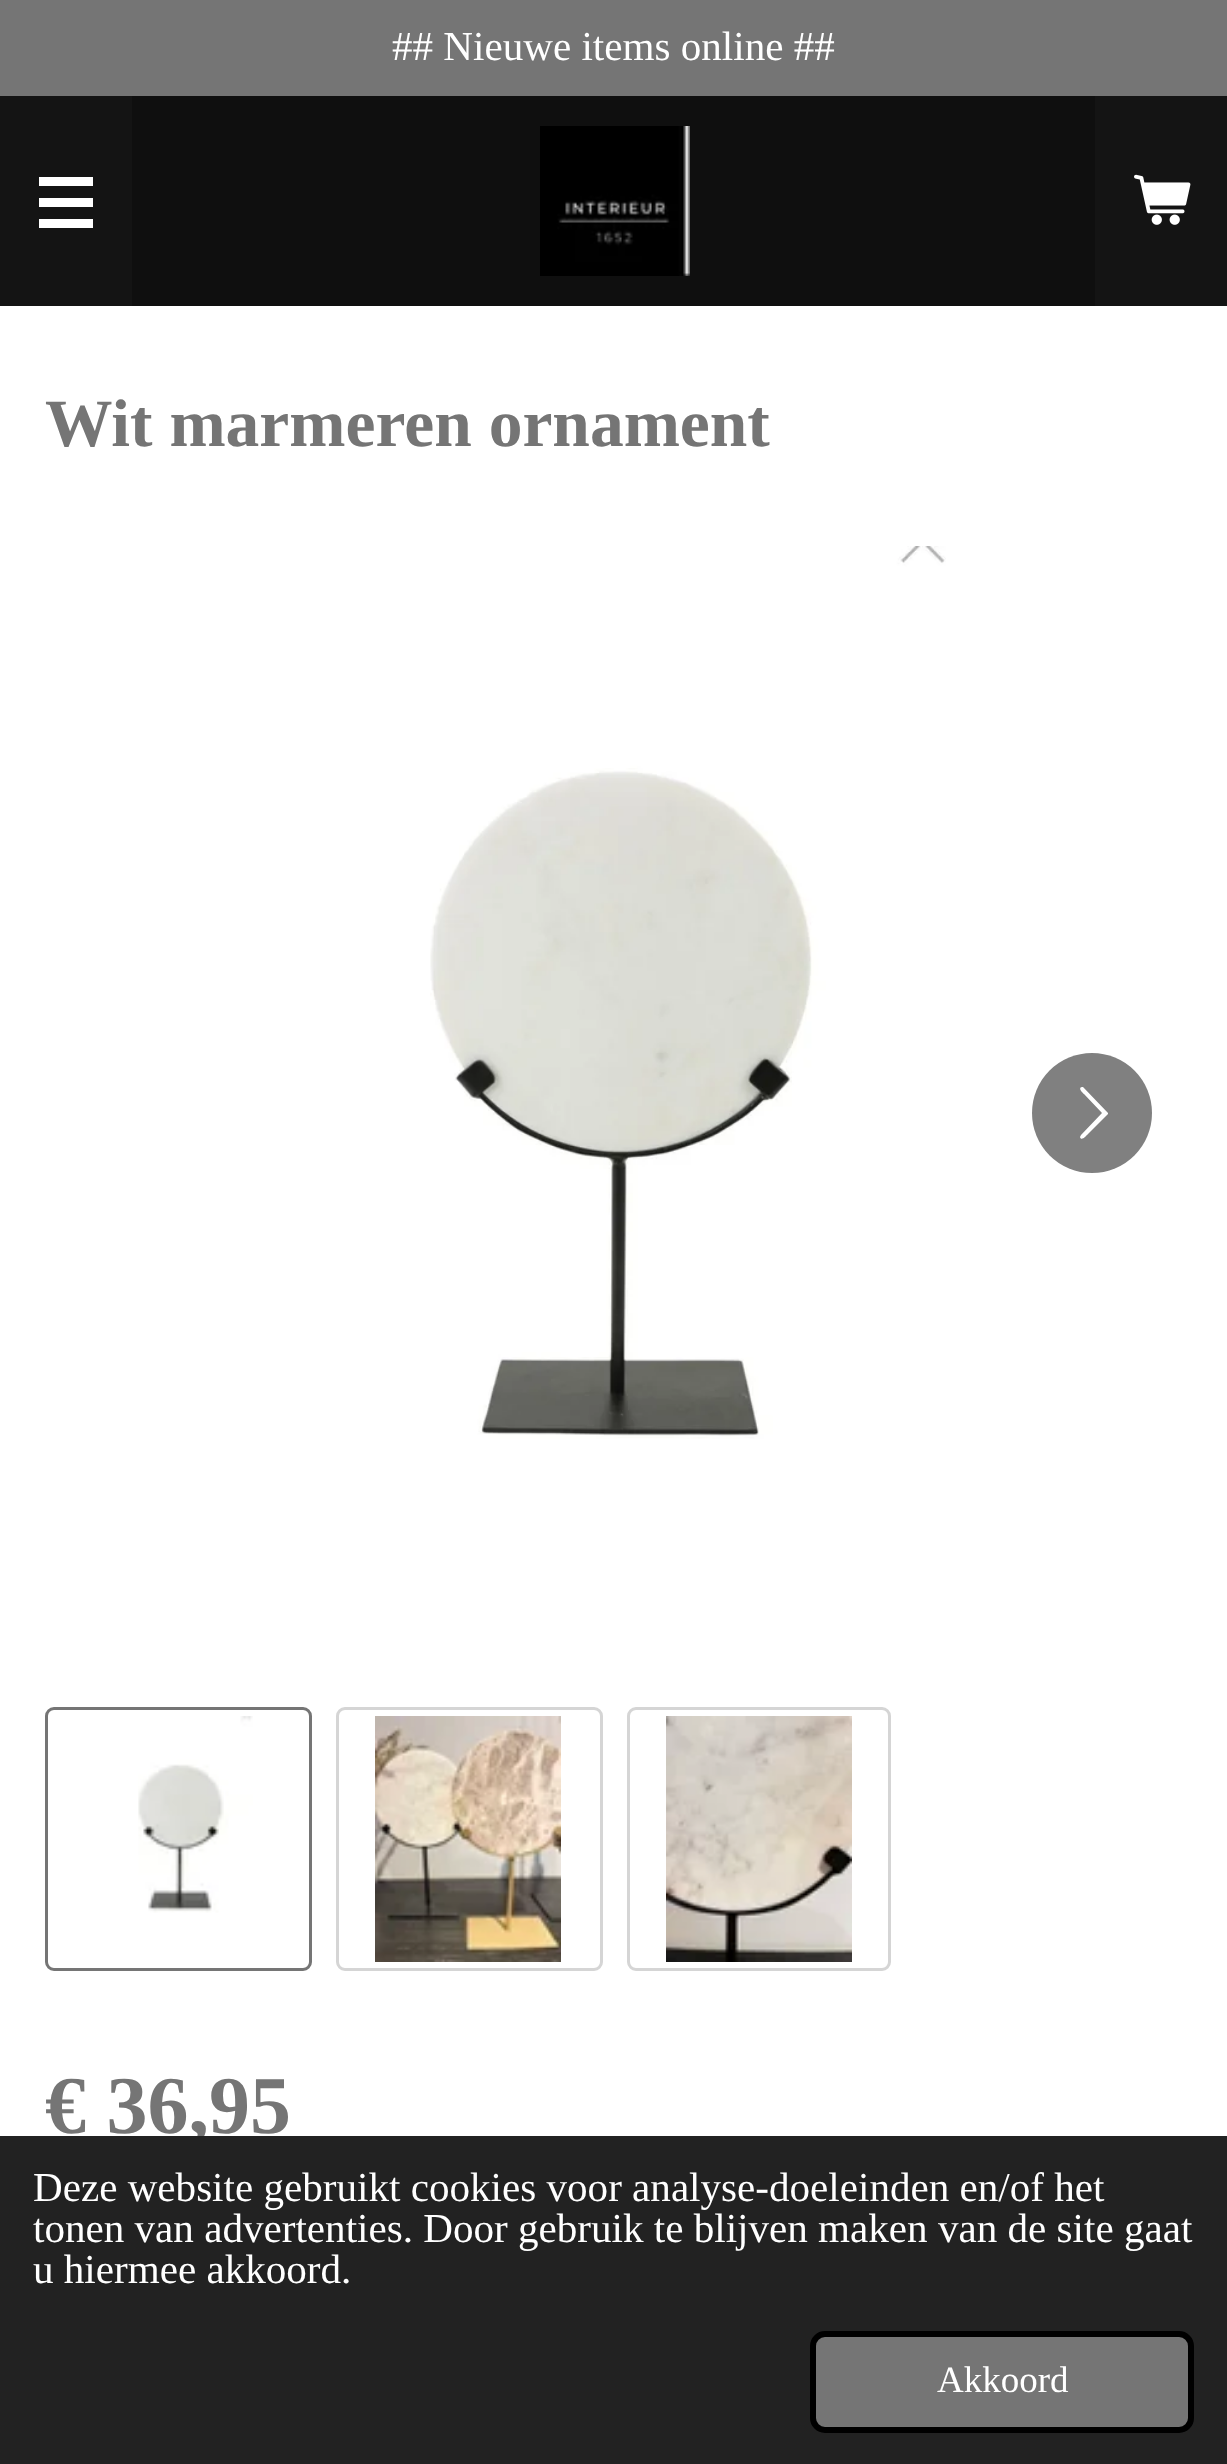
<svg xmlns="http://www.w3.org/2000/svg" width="1227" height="2464">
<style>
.a{font:41.1px Liberation Serif;fill:#fff}
.b{font:bold 67.5px Liberation Serif;fill:#757575}
.c{font:bold 82px Liberation Serif;fill:#757575}
.d{font:37px Liberation Serif;fill:#fff}
</style>
<rect width="100%" height="100%" fill="#0f0f0f"/>
<path fill="#757575" d="M0 0h1227v96H0z"/>
<path fill="#141414" d="M0 96h132v210H0z"/>
<path fill="#fff" d="M39 198h54v9H39z"/>
<path fill="#fff" d="M39 177h54v9H39z"/>
<path fill="#fff" d="M39 219h54v9H39z"/>
<image href="1.png" x="540" y="126" width="150" height="150"/>
<path fill="#141414" d="M1095 96h132v210H1095z"/>
<image href="2.png" x="1134" y="174" width="57" height="51"/>
<path fill="#fff" d="M0 306h1227v1830H0z"/>
<image href="3.png" x="430" y="546" width="516" height="893"/>
<circle fill="#808080" cx="1092" cy="1113" r="60"/>
<path fill="#fff" d="M1081 1135l21-22l-18-19c0 0-7-6-2-7h1l25 26v1l-20 20c-1 1-7 8-8 3z"/>
<rect fill="none" stroke="#757575" stroke-width="3" x="46.5" y="1708.5" width="264" height="261" rx="7.5"/>
<image href="4.png" x="138" y="1716" width="115" height="197"/>
<rect fill="none" stroke="#d5d5d5" stroke-width="3" x="337.5" y="1708.5" width="264" height="261" rx="7.5"/>
<image href="5.png" x="375" y="1716" width="186" height="246"/>
<rect fill="none" stroke="#d5d5d5" stroke-width="3" x="628.5" y="1708.5" width="261" height="261" rx="7.5"/>
<image href="6.png" x="666" y="1716" width="186" height="246"/>
<text class="a" x="392" y="60">## Nieuwe items online ##</text>
<text class="b" x="45" y="446">Wit marmeren ornament</text>
<text class="c" x="45" y="2133">€ 36,95</text>
<path fill="#222" d="M0 2136h1227v328H0z"/>
<text class="a" x="33" y="2201">Deze website gebruikt cookies voor analyse-doeleinden en/of het</text>
<text class="a" x="33" y="2242">tonen van advertenties. Door gebruik te blijven maken van de site gaat</text>
<text class="a" x="33" y="2283">u hiermee akkoord.</text>
<rect fill="#757575" stroke="#000" stroke-width="6" x="813" y="2334" width="378" height="96" rx="12"/>
<text class="d" x="937" y="2392">Akkoord</text>
</svg>
